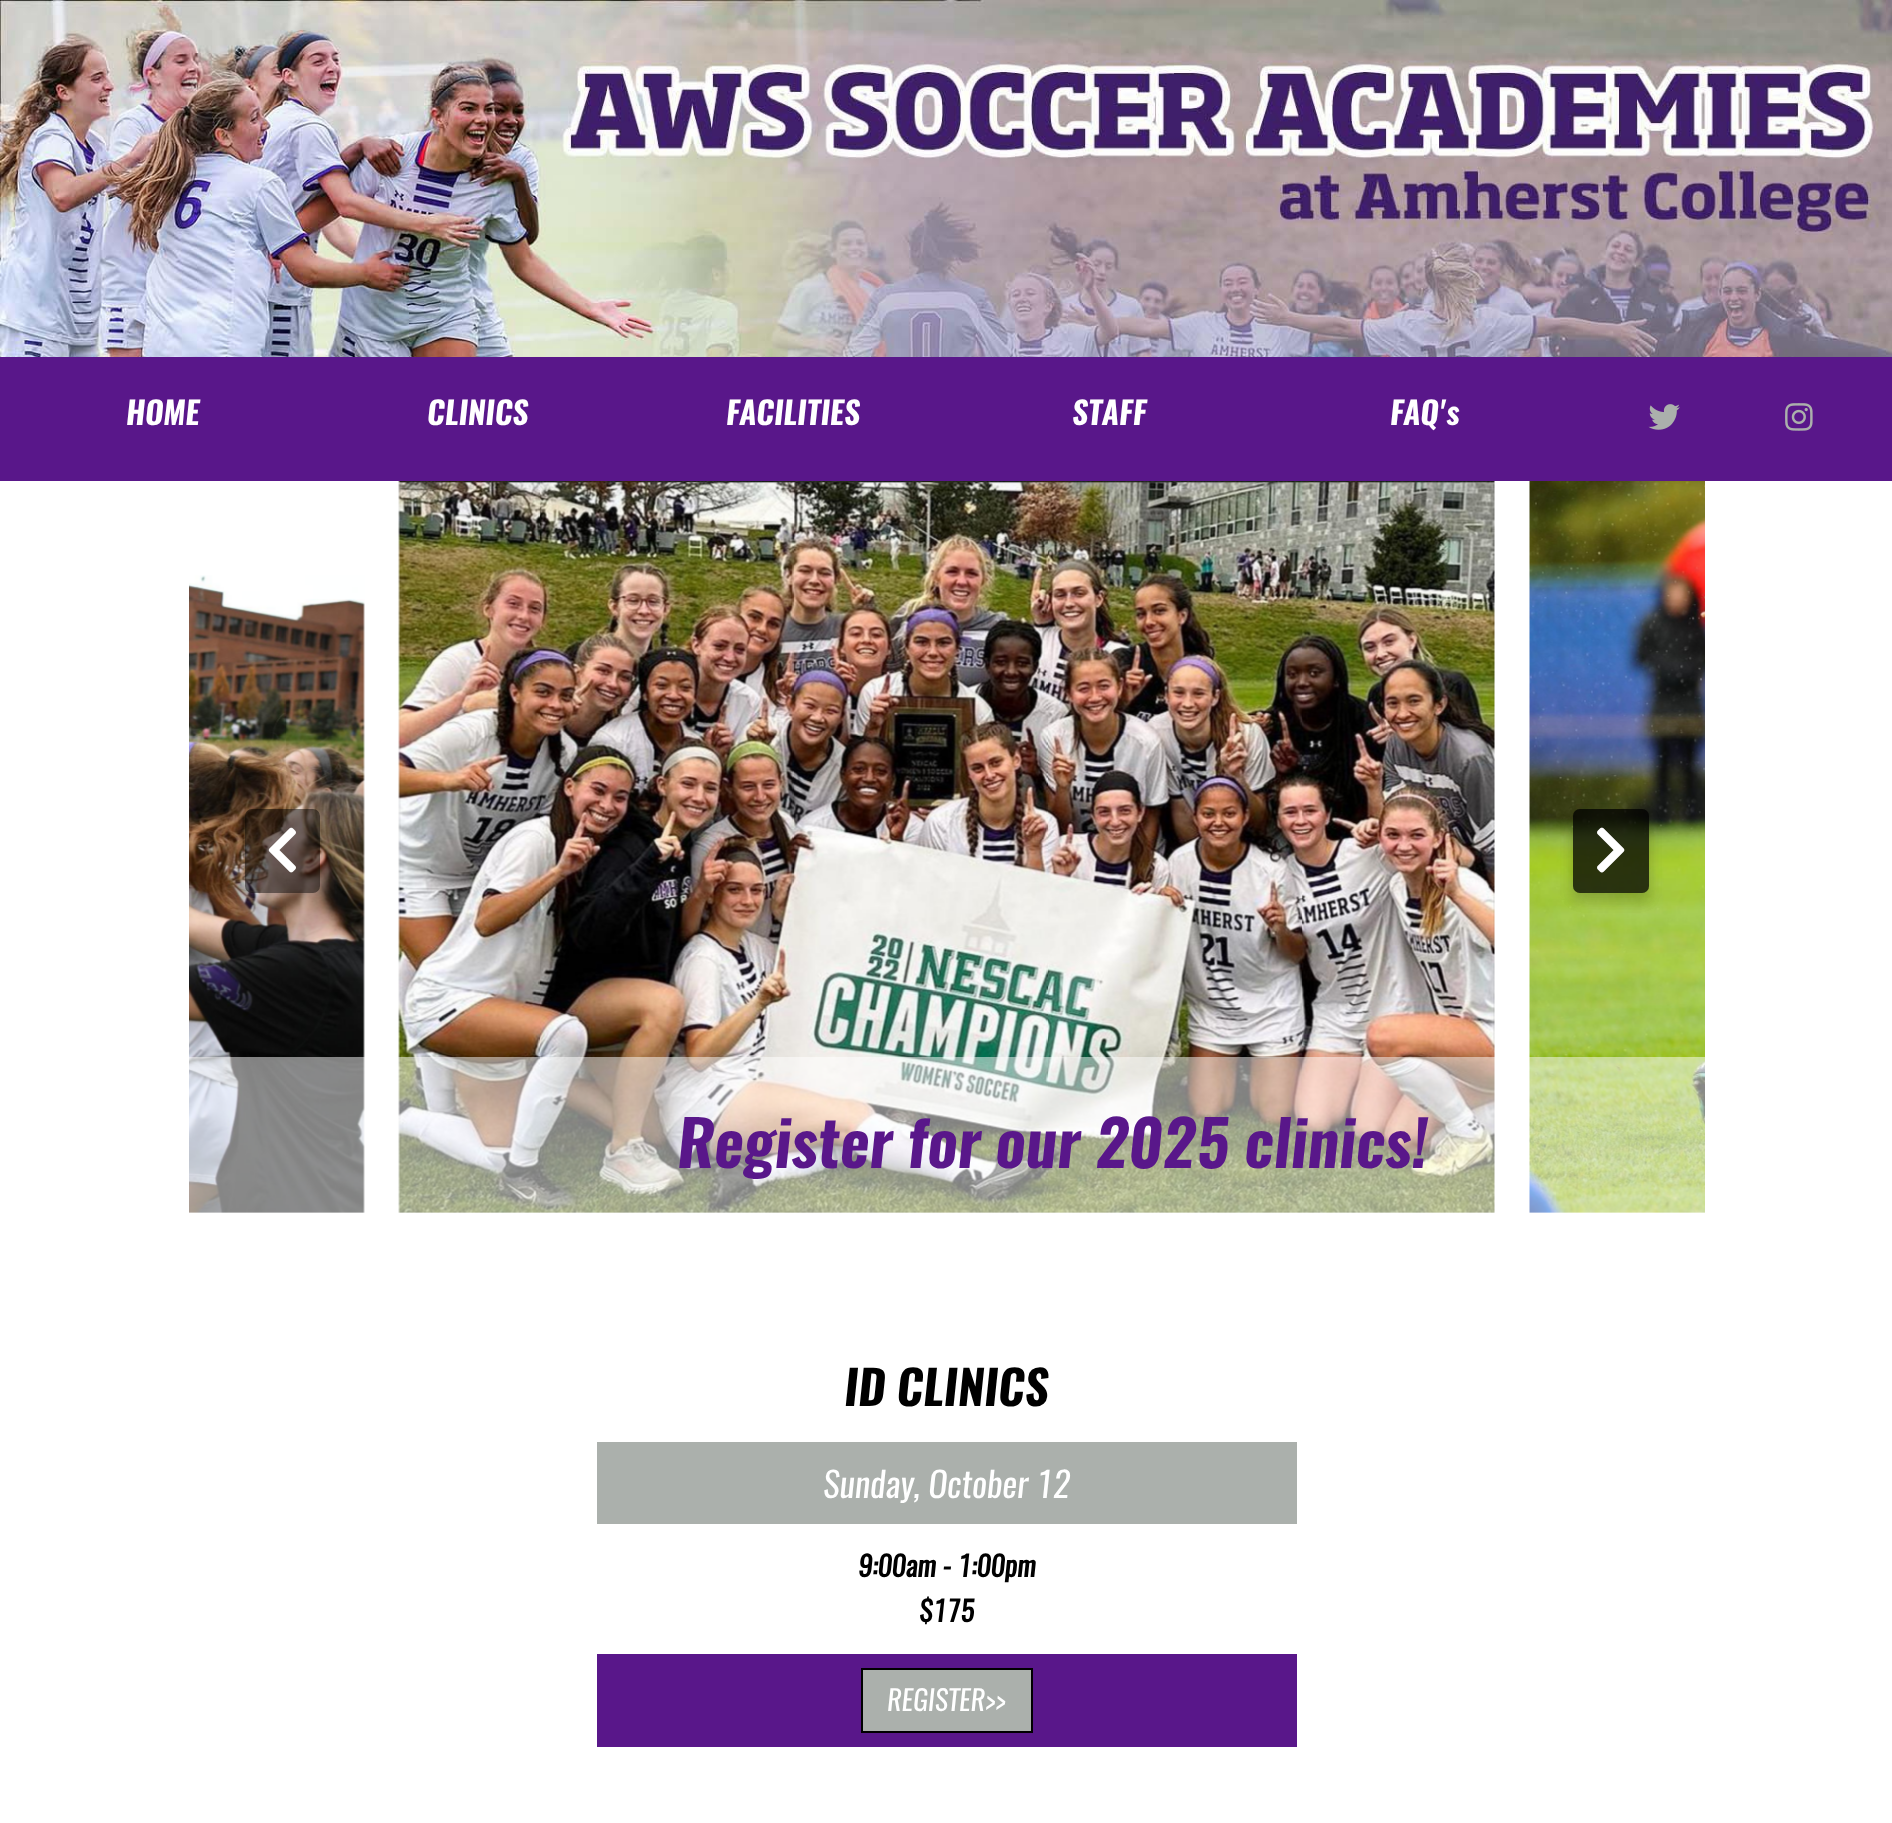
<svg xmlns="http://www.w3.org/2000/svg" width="1892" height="1823">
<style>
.a{font:italic bold 31.5px Oswald;fill:#fff}
.b{font:italic bold 63px Oswald;fill:#59178a}
.c{font:italic bold 47.25px Oswald;fill:#000}
.d{font:italic 35px Oswald;fill:#fff}
.e{font:italic bold 28px 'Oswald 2';fill:#000}
.f{font:italic 28px Oswald;fill:#fff}
</style>
<defs>
<clipPath id="clip1"><path d="M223 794h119v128h-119zm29 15h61c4 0 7 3 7 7v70c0 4-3 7-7 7h-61c-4 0-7-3-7-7v-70c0-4 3-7 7-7z" clip-rule="evenodd"/></clipPath>
<clipPath id="clip2"><path d="M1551 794h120v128h-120zm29 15h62c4 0 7 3 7 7v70c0 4-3 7-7 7h-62c-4 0-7-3-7-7v-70c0-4 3-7 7-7z" clip-rule="evenodd"/></clipPath>
</defs>
<rect width="100%" height="100%" fill="#fff"/>
<image href="1.png" x="0" y="0" width="1892" height="357"/>
<path fill="#59178a" d="M0 357h1892v124H0z"/>
<image href="2.png" x="1648" y="404" width="32" height="26"/>
<image href="3.png" x="1785" y="403" width="28" height="28"/>
<image href="4.png" x="189" y="575" width="176" height="638"/>
<image href="5.png" x="398" y="481" width="1097" height="732"/>
<image href="6.png" x="1529" y="481" width="176" height="732"/>
<g clip-path="url(#clip1)">
<rect fill="#0000001a" filter="blur(7px)" x="245" y="816" width="75" height="84" rx="7"/>
</g>
<rect fill="#00000080" x="245" y="809" width="75" height="84" rx="7"/>
<image href="7.png" x="268" y="827" width="28" height="46"/>
<g clip-path="url(#clip2)">
<rect fill="#0000001a" filter="blur(7px)" x="1573" y="816" width="76" height="84" rx="7"/>
</g>
<rect fill="#00000080" x="1573" y="809" width="76" height="84" rx="7"/>
<image href="8.png" x="1597" y="827" width="28" height="46"/>
<g clip-path="url(#clip2)">
<rect fill="#0000001a" filter="blur(7px)" x="1573" y="816" width="76" height="84" rx="7"/>
</g>
<rect fill="#00000080" x="1573" y="809" width="76" height="84" rx="7"/>
<image href="9.png" x="1597" y="827" width="28" height="46"/>
<path fill="#ffffff80" d="M189 1057h1516v156H189z"/>
<path fill="#abb0ac" d="M597 1442h700v82H597z"/>
<path fill="#59178a" d="M597 1654h700v93H597z"/>
<path fill="#abb0ac" stroke="#000" stroke-width="2" d="M862 1669h170v63H862z"/>
<text class="a" x="126" y="425">HOME</text>
<text class="a" x="427" y="425">CLINICS</text>
<text class="a" x="726" y="425">FACILITIES</text>
<text class="a" x="1072" y="425">STAFF</text>
<text class="a" x="1390" y="425">FAQ's</text>
<text class="b" x="677" y="1168">Register for our 2025 clinics!</text>
<text class="c" x="844" y="1406">ID CLINICS</text>
<text class="d" x="823" y="1498">Sunday, October 12</text>
<text class="e" x="858" y="1577">9:00am - 1:00pm</text>
<text class="e" x="919" y="1622">$175</text>
<text class="f" x="887" y="1711">REGISTER&gt;&gt;</text>
</svg>
